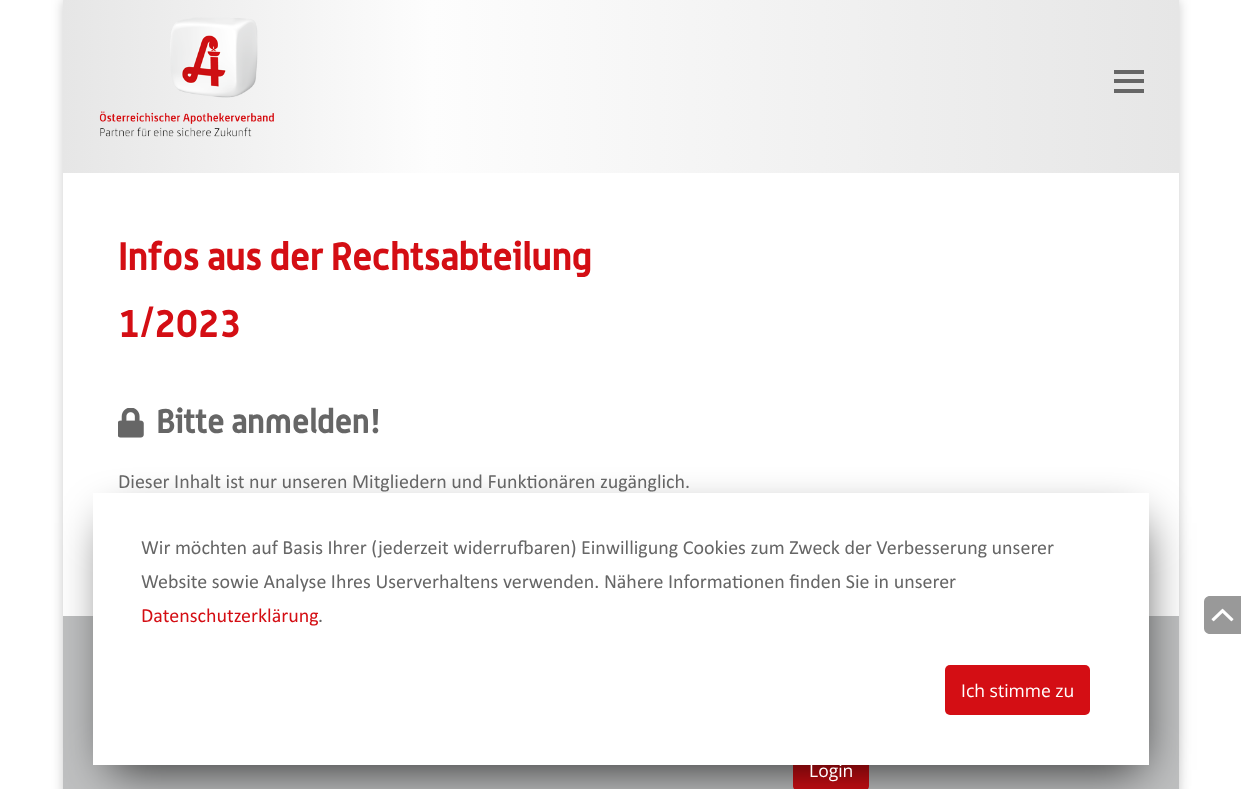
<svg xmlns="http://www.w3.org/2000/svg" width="1241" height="789">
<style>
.a{font:bold 37.5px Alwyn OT;fill:#d40e14}
.b{font:bold 32.5px Alwyn OT;fill:#666}
.c{font:20px Calibri;fill:#666}
.d{font:17.5px Open Sans;fill:#fff}
.e{font:20px Calibri;fill:#d40e14}
</style>
<defs>
<clipPath id="clip1"><path d="M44 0h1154v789h-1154zm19 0h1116v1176h-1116z" clip-rule="evenodd"/></clipPath>
<linearGradient id="g1" gradientUnits="userSpaceOnUse" x1="63" y1="86" x2="1179" y2="86"><stop offset="0" stop-color="#e6e6e6"/><stop offset="0.33" stop-color="#fdfdfd"/><stop offset="1" stop-color="#e6e6e6"/></linearGradient>
</defs>
<rect width="100%" height="100%" fill="#fff"/>
<g clip-path="url(#clip1)">
<path fill="#00000033" filter="blur(6px)" d="M63 0h1116v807H63z"/>
</g>
<path fill="url(#g1)" d="M63 0h1116v173H63z"/>
<image href="1.png" x="99" y="17" width="175" height="120"/>
<path fill="#666" d="M1114 70h30v4H1114z"/>
<path fill="#666" d="M1114 79h30v4H1114z"/>
<path fill="#666" d="M1114 89h30v4H1114z"/>
<path fill="#fff" d="M1178 193h1v423H1178z"/>
<image href="2.png" x="118" y="408" width="26" height="30"/>
<path fill="#999" d="M1210 596h31v38h-31c-3.5 0-6-2.5-6-6v-26c0-3.5 2.5-6 6-6z"/>
<image href="3.png" x="1211" y="608" width="23" height="14"/>
<path fill="#bfc0c1" d="M63 616h1116v173H63z"/>
<rect fill="#d40e14" x="793" y="749" width="76" height="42" rx="5"/>
<path fill="#000000bf" filter="blur(24px)" d="M110 523h1031v247H110z"/>
<path fill="#fff" d="M93 493h1056v272H93z"/>
<rect fill="#d40e14" x="945" y="665" width="145" height="50" rx="5"/>
<text class="a" x="118" y="270">Infos aus der Rechtsabteilung</text>
<text class="a" x="118" y="337">1/2023</text>
<text class="b" x="156" y="433">Bitte anmelden!</text>
<text class="c" x="118" y="488">Dieser Inhalt ist nur unseren Mitgliedern und Funktionären zugänglich.</text>
<text class="d" x="809" y="777">Login</text>
<text class="c" x="141" y="554">Wir möchten auf Basis Ihrer (jederzeit widerrufbaren) Einwilligung Cookies zum Zweck der Verbesserung unserer</text>
<text class="c" x="141" y="588">Website sowie Analyse Ihres Userverhaltens verwenden. Nähere Informationen finden Sie in unserer</text>
<text class="e" x="141" y="622">Datenschutzerklärung</text>
<text class="c" x="318" y="622">.</text>
<text class="d" x="961" y="697">Ich stimme zu</text>
</svg>
